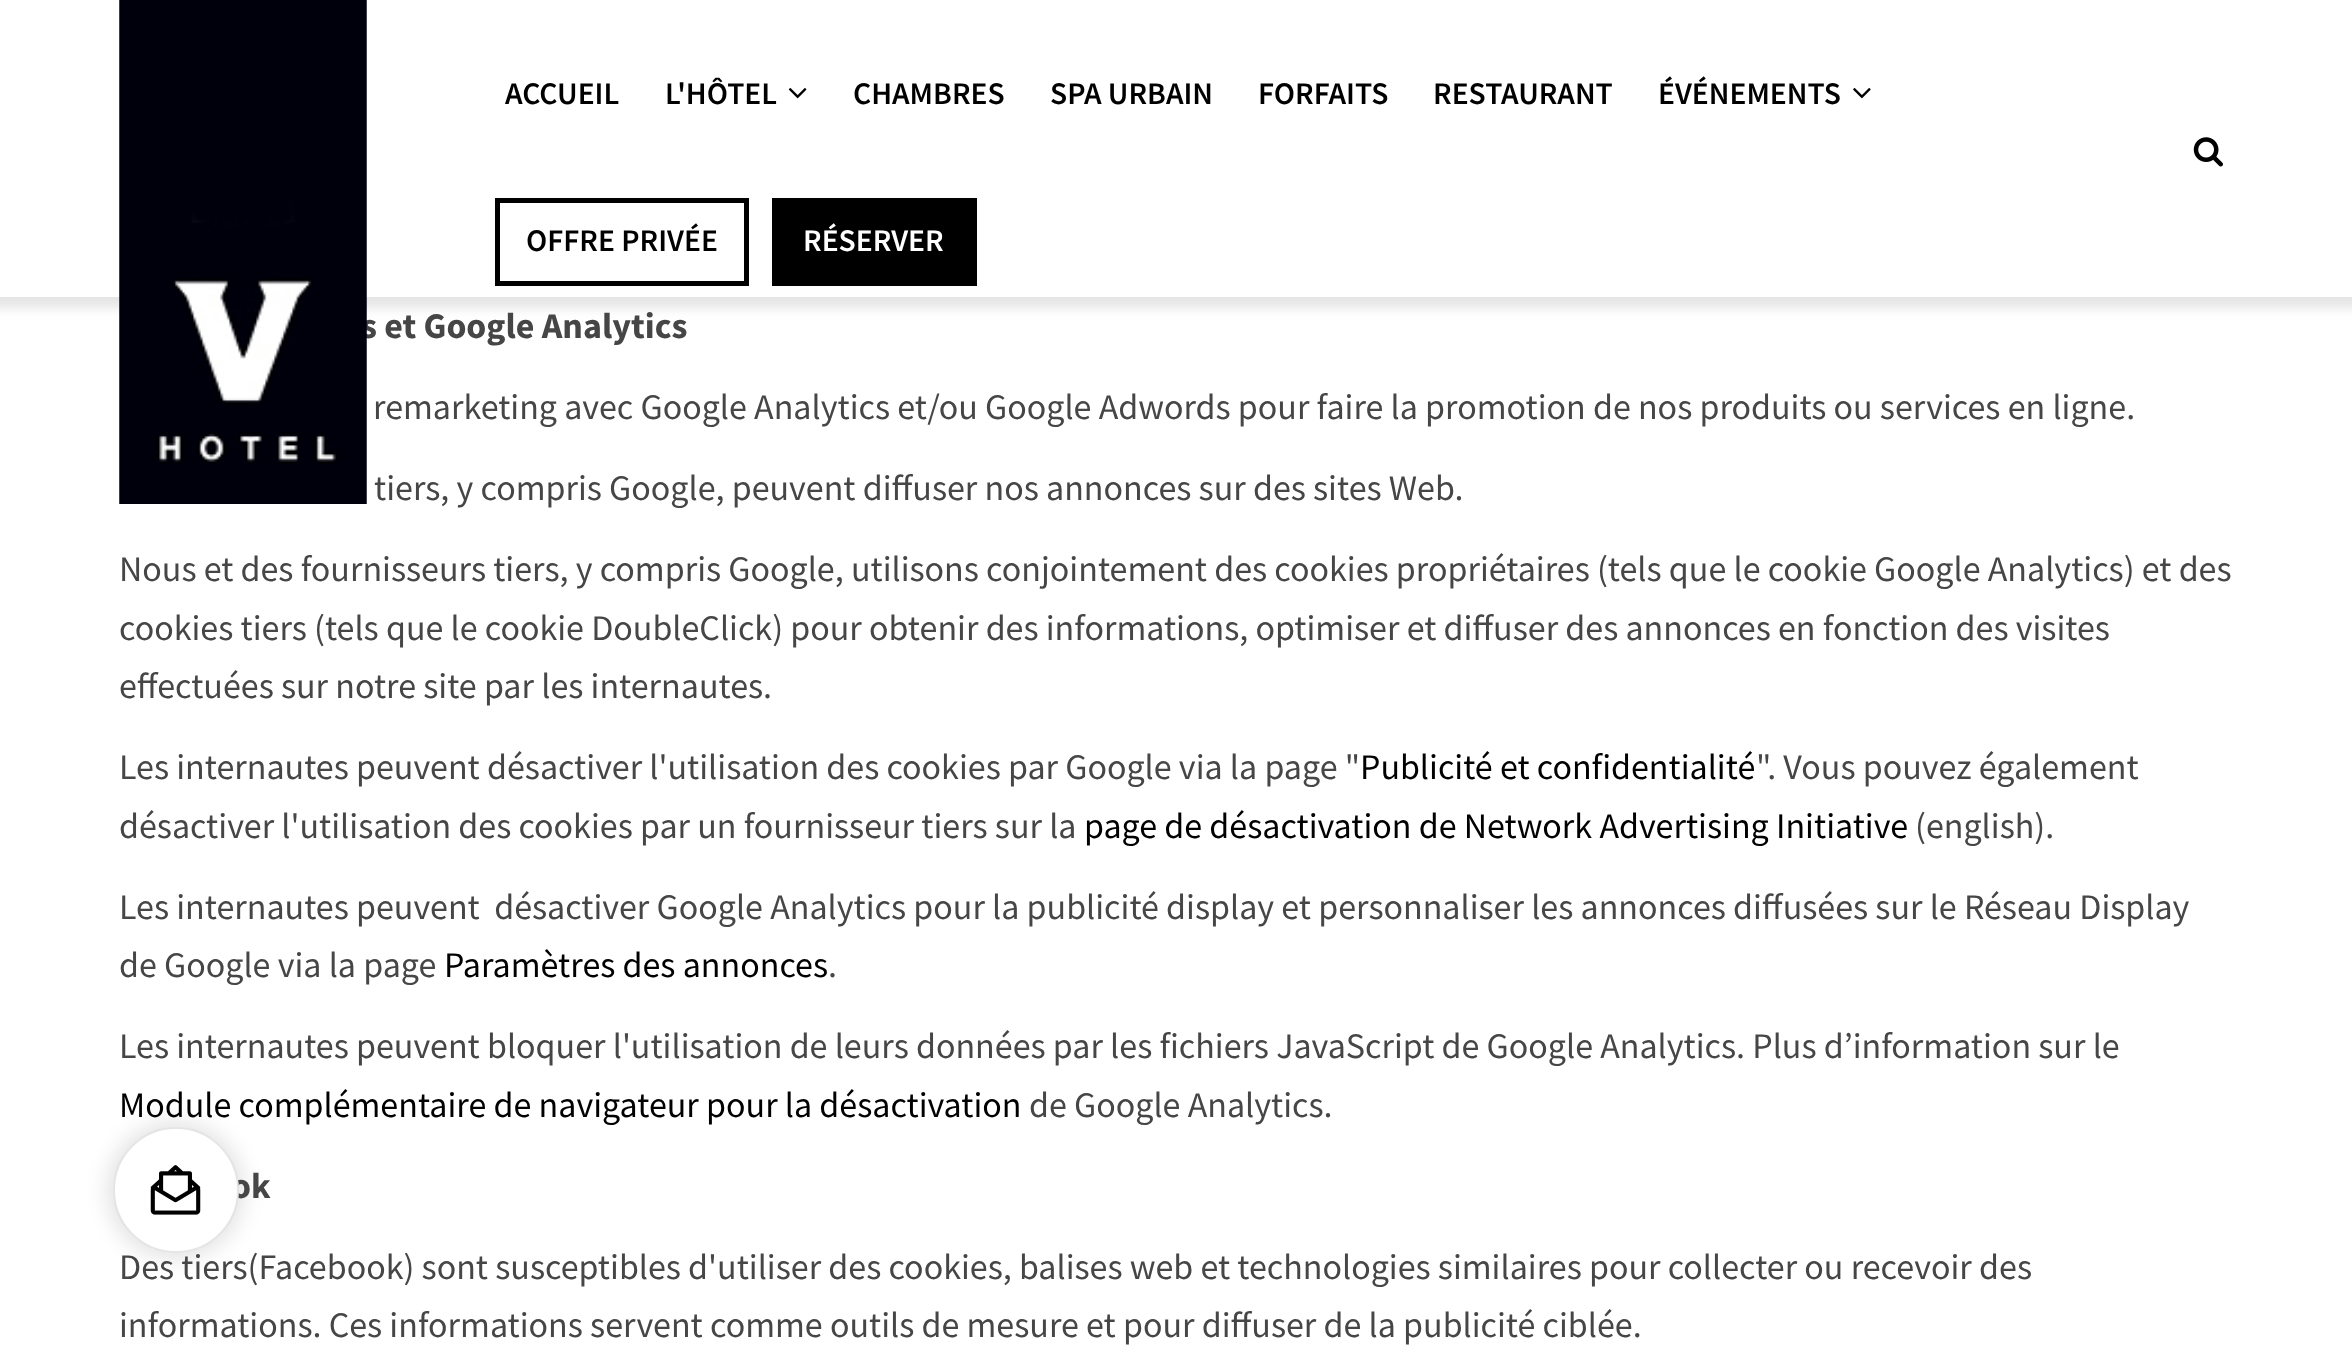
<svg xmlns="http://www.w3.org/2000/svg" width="2352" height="1364">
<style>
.a{font:600 31.5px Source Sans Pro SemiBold;fill:#000}
.b{font:600 31.5px Source Sans Pro SemiBold;fill:#fff}
.c{font:bold 36px Source Sans Pro;fill:#464646}
.d{font:36px Source Sans Pro;fill:#464646}
.e{font:36px Source Sans Pro;fill:#000}
</style>
<rect width="100%" height="100%" fill="#fff"/>
<path fill="#0000001a" filter="blur(5.5px)" d="M-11 -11h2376v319H-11z"/>
<path fill="#fff" d="M0 0h2352v297H0z"/>
<image href="2.png" x="788" y="88" width="19" height="11"/>
<image href="3.png" x="1853" y="88" width="18" height="11"/>
<path fill="none" stroke="#000" stroke-width="5" d="M497.5 200.5h249v83H497.5z"/>
<path fill="#000" d="M772 198h205v88H772z"/>
<image href="4.png" x="2193" y="137" width="30" height="30"/>
<rect fill="#0000001a" filter="blur(10px)" x="106" y="1121" width="139" height="139" rx="69.5"/>
<text class="a" x="505" y="104">ACCUEIL</text>
<text class="a" x="665" y="104">L'HÔTEL</text>
<text class="a" x="853" y="104">CHAMBRES</text>
<text class="a" x="1050" y="104">SPA URBAIN</text>
<text class="a" x="1258" y="104">FORFAITS</text>
<text class="a" x="1433" y="104">RESTAURANT</text>
<text class="a" x="1658" y="104">ÉVÉNEMENTS</text>
<text class="a" x="526" y="251">OFFRE PRIVÉE</text>
<text class="b" x="803" y="251">RÉSERVER</text>
<text class="c" x="361" y="338">s et Google Analytics</text>
<image href="1.png" x="119" y="0" width="248" height="504"/>
<text class="d" x="373" y="419">remarketing avec Google Analytics et/ou Google Adwords pour faire la promotion de nos produits ou services en ligne.</text>
<text class="d" x="374" y="500">tiers, y compris Google, peuvent diffuser nos annonces sur des sites Web.</text>
<text class="d" x="119" y="581">Nous et des fournisseurs tiers, y compris Google, utilisons conjointement des cookies propriétaires (tels que le cookie Google Analytics) et des</text>
<text class="d" x="119" y="640">cookies tiers (tels que le cookie DoubleClick) pour obtenir des informations, optimiser et diffuser des annonces en fonction des visites</text>
<text class="d" x="119" y="698">effectuées sur notre site par les internautes.</text>
<text class="d" x="119" y="779">Les internautes peuvent désactiver l'utilisation des cookies par Google via la page "</text>
<text class="e" x="1360" y="779">Publicité et confidentialité</text>
<text class="d" x="1756" y="779">". Vous pouvez également</text>
<text class="d" x="119" y="838">désactiver l'utilisation des cookies par un fournisseur tiers sur la</text>
<text class="e" x="1084" y="838">page de désactivation de Network Advertising Initiative</text>
<text class="d" x="1915" y="838">(english).</text>
<text class="d" xml:space="preserve" x="119" y="919">Les internautes peuvent  désactiver Google Analytics pour la publicité display et personnaliser les annonces diffusées sur le Réseau Display</text>
<text class="d" x="119" y="977">de Google via la page</text>
<text class="e" x="444" y="977">Paramètres des annonces</text>
<text class="d" x="828" y="977">.</text>
<text class="d" x="119" y="1058">Les internautes peuvent bloquer l'utilisation de leurs données par les fichiers JavaScript de Google Analytics. Plus d’information sur le</text>
<text class="e" x="119" y="1117">Module complémentaire de navigateur pour la désactivation</text>
<text class="d" x="1029" y="1117">de Google Analytics.</text>
<text class="c" x="231" y="1198">ok</text>
<text class="d" x="119" y="1279">Des tiers(Facebook) sont susceptibles d'utiliser des cookies, balises web et technologies similaires pour collecter ou recevoir des</text>
<text class="d" x="119" y="1337">informations. Ces informations servent comme outils de mesure et pour diffuser de la publicité ciblée.</text>
<circle fill="#fff" cx="176" cy="1190" r="63"/>
<circle fill="none" stroke="#0000001a" stroke-width="2" cx="176" cy="1190" r="62"/>
<image href="5.png" x="150" y="1165" width="51" height="50"/>
</svg>
